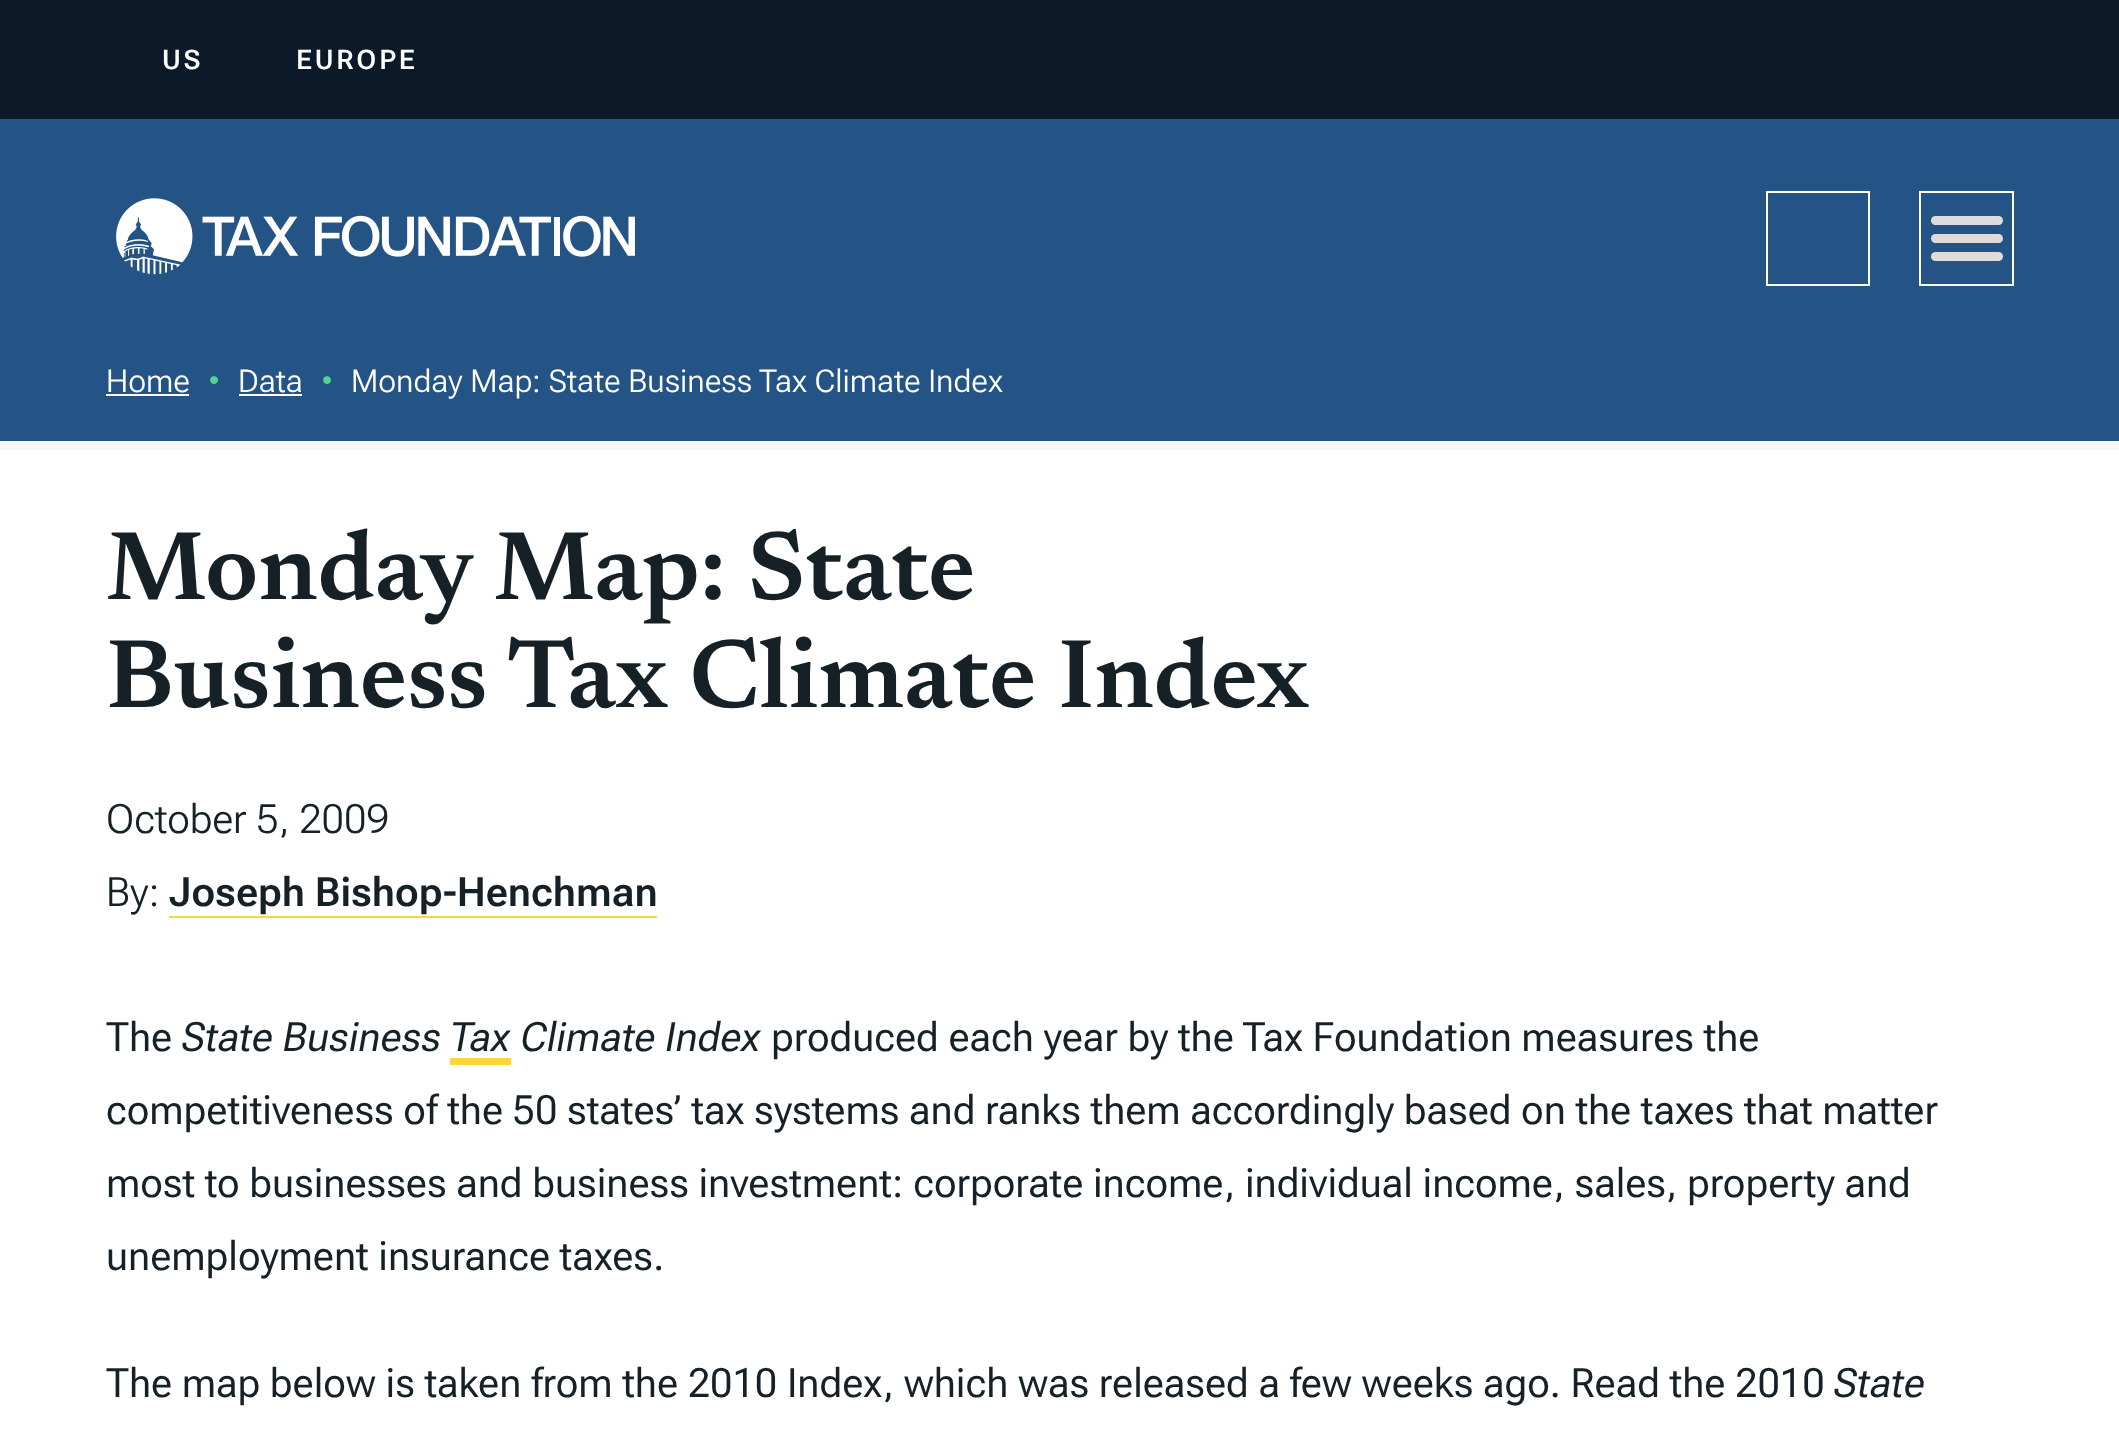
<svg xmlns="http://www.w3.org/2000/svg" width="2119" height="1449">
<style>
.a{font:600 27px Roboto Flex;letter-spacing:2.75px;fill:#fff}
.b{font:300 31.5px 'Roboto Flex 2';fill:#fff}
.c{font:300 31.5px 'Roboto Flex 2';fill:#55d390}
.d{font:600 98.5px Newsreader;fill:#162127}
.e{font:300 40.5px Roboto Flex;fill:#162127}
.f{font:600 40.5px 'Roboto Flex 2';fill:#162127}
.g{font:40.5px Roboto Flex;fill:#162127}
.h{font:italic 40.5px Roboto Flex;fill:#162127}
</style>
<rect width="100%" height="100%" fill="#fff"/>
<path fill="#235485" d="M0 119h2119v322H0z"/>
<path fill="#0b1928" d="M0 0h2119v119H0z"/>
<image href="1.png" x="116" y="198" width="519" height="77"/>
<path fill="none" stroke="#fff" stroke-width="2" d="M1767 192h102v93H1767z"/>
<path fill="none" stroke="#fff" stroke-width="2" d="M1920 192h93v93H1920z"/>
<rect fill="#ddd" x="1931" y="216" width="72" height="9" rx="4.5"/>
<rect fill="#ddd" x="1931" y="234" width="72" height="9" rx="4.5"/>
<rect fill="#ddd" x="1931" y="252" width="72" height="9" rx="4.5"/>
<path fill="#fff" d="M106 394h83v2H106z"/>
<path fill="#fff" d="M239 394h63v2H239z"/>
<path fill="#f7f7f7" d="M0 441h2119v9H0z"/>
<path fill="#ffd53d" d="M169 916h488v2H169z"/>
<path fill="#ffd53d" d="M450 1058h61v7H450z"/>
<text class="a" x="162" y="69">US</text>
<text class="a" x="296" y="69">EUROPE</text>
<text class="b" x="106" y="392">Home</text>
<text class="c" x="208" y="392">•</text>
<text class="b" x="238" y="392">Data</text>
<text class="c" x="321" y="392">•</text>
<text class="b" x="351" y="392">Monday Map: State Business Tax Climate Index</text>
<text class="d" x="106" y="599">Monday Map: State</text>
<text class="d" x="106" y="707">Business Tax Climate Index</text>
<text class="e" x="106" y="833">October 5, 2009</text>
<text class="e" x="106" y="906">By:</text>
<text class="f" x="169" y="906">Joseph Bishop-Henchman</text>
<text class="g" x="106" y="1051">The</text>
<text class="h" x="182" y="1051">State Business Tax</text>
<text class="h" x="521" y="1051">Climate Index</text>
<text class="g" x="771" y="1051">produced each year by the Tax Foundation measures the</text>
<text class="g" x="106" y="1124">competitiveness of the 50 states’ tax systems and ranks them accordingly based on the taxes that matter</text>
<text class="g" x="106" y="1197">most to businesses and business investment: corporate income, individual income, sales, property and</text>
<text class="g" x="106" y="1270">unemployment insurance taxes.</text>
<text class="g" x="106" y="1397">The map below is taken from the 2010 Index, which was released a few weeks ago. Read the 2010</text>
<text class="h" x="1834" y="1397">State</text>
</svg>
